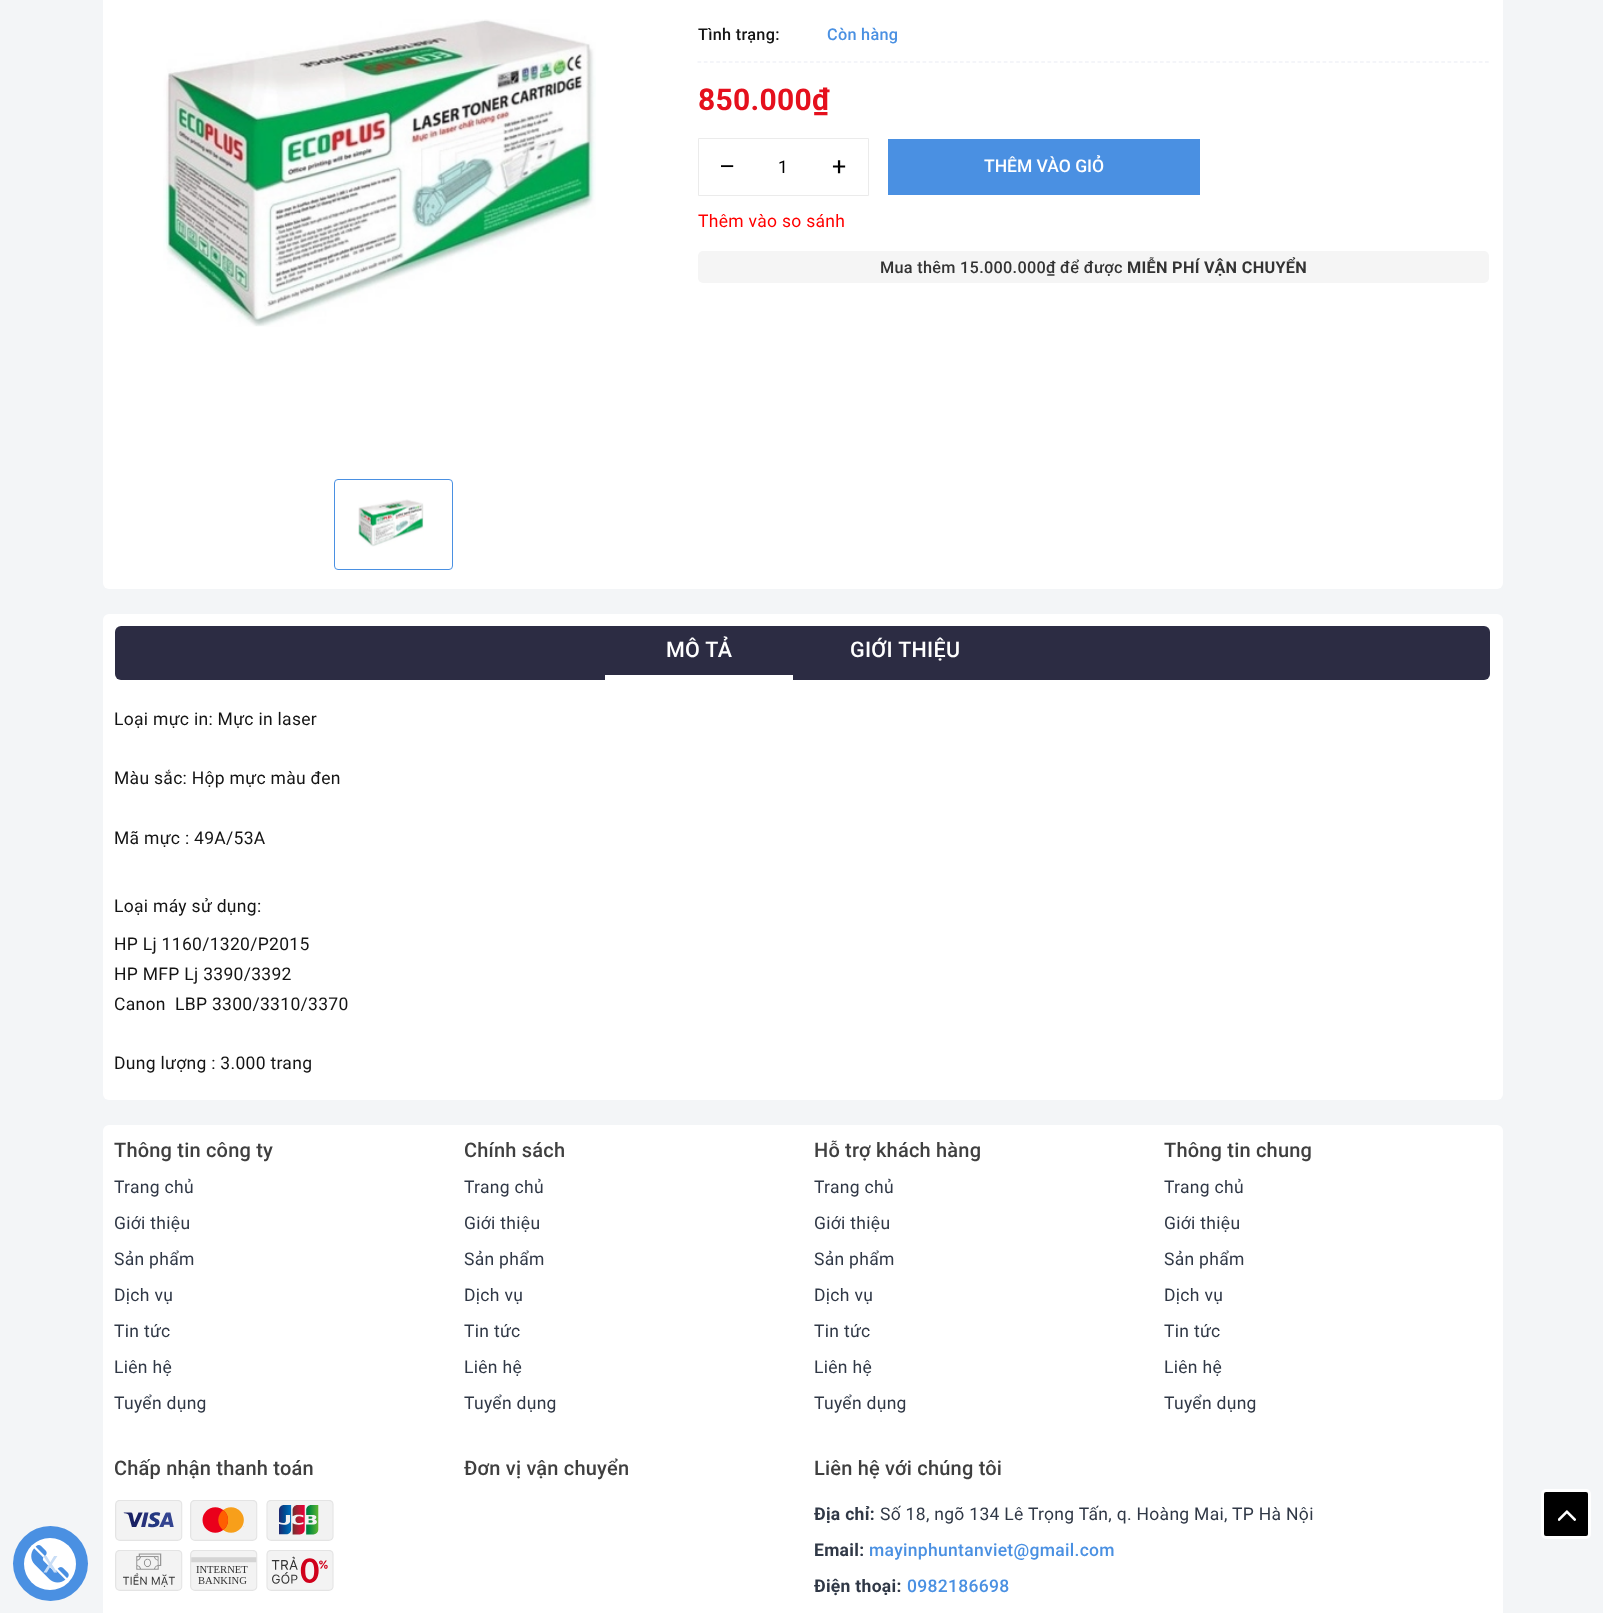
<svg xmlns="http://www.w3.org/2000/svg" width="1603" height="1613">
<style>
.a{font:500 16.25px Roboto;letter-spacing:0.3px;fill:#141414}
.b{font:500 16.25px Roboto;letter-spacing:0.3px;fill:#4a90e2}
.c{font:bold 30px Roboto;letter-spacing:0.3px;fill:#e5101d}
.d{font:25px Roboto;letter-spacing:0.3px;fill:#000}
.e{font:17.5px Roboto;letter-spacing:0.3px;fill:#000}
.f{font:500 17.5px Roboto;fill:#fff}
.g{font:17.5px Roboto;letter-spacing:0.3px;fill:#f00}
.h{font:500 16.25px Roboto;letter-spacing:0.3px;fill:#333}
.i{font:bold 16.25px Roboto;letter-spacing:0.3px;fill:#333}
.j{font:500 21.5px Roboto;letter-spacing:0.3px;fill:#fff}
.k{font:17.5px Roboto;letter-spacing:0.3px;fill:#141414}
.l{font:31px Roboto;letter-spacing:0.3px;fill:#c8ddf6}
.m{font:500 20px Roboto;letter-spacing:0.2px;fill:#3f3f3f}
.n{font:17.5px Roboto;letter-spacing:0.3px;fill:#303846}
.o{font:bold 17.5px Roboto;letter-spacing:0.3px;fill:#303846}
.p{font:500 17.5px Roboto;letter-spacing:0.3px;fill:#4a90e2}
</style>
<rect width="100%" height="100%" fill="#f3f5f7"/>
<rect fill="#fff" x="103" y="-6" width="1400" height="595" rx="6"/>
<image href="1.png" x="163" y="19" width="433" height="308"/>
<rect fill="none" stroke="#4a90e2" x="334.5" y="479.5" width="118" height="90" rx="3.5"/>
<image href="2.png" x="358" y="499" width="66" height="48"/>
<path fill="none" stroke="#eaebf3" stroke-width="1.2" stroke-dasharray="3.75 2.5" d="M697.5 62h791.5"/>
<path fill="none" stroke="#ebebeb" d="M698.5 138.5h170v57H698.5z"/>
<path fill="#4a90e2" d="M888 139h312v56H888z"/>
<rect fill="#f5f5f5" x="698" y="251" width="791" height="32" rx="5"/>
<rect fill="#fff" x="103" y="614" width="1400" height="486" rx="6"/>
<rect fill="#2c2c43" x="115" y="626" width="1375" height="54" rx="6"/>
<path fill="#fff" d="M605 675h188v5H605z"/>
<circle fill="#4a90e2" cx="50.5" cy="1563.5" r="37.5"/>
<circle fill="#fff" cx="50" cy="1564" r="26"/>
<image href="3.png" x="31" y="1545" width="38" height="38"/>
<rect fill="#fff" x="103" y="1125" width="1400" height="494" rx="6"/>
<image href="4.png" x="115" y="1500" width="68" height="41"/>
<image href="5.png" x="190" y="1500" width="68" height="41"/>
<image href="6.png" x="266" y="1500" width="68" height="41"/>
<image href="7.png" x="115" y="1550" width="68" height="41"/>
<image href="8.png" x="190" y="1550" width="68" height="41"/>
<image href="9.png" x="266" y="1550" width="68" height="41"/>
<rect fill="#000" stroke="#fff" stroke-width="3" x="1542.5" y="1490.5" width="47" height="47" rx="3.5"/>
<image href="10.png" x="1558" y="1510" width="18" height="11"/>
<text class="a" x="698" y="40">Tình trạng:</text>
<text class="b" x="827" y="40">Còn hàng</text>
<text class="c" x="698" y="110">850.000₫</text>
<text class="d" x="719" y="175">–</text>
<text class="e" x="778" y="173">1</text>
<text class="d" x="832" y="175">+</text>
<text class="f" x="984" y="172">THÊM VÀO GIỎ</text>
<text class="g" x="698" y="227">Thêm vào so sánh</text>
<text class="h" x="880" y="273">Mua thêm 15.000.000₫ để được</text>
<text class="i" x="1127" y="273">MIỄN PHÍ VẬN CHUYỂN</text>
<text class="j" x="666" y="657">MÔ TẢ</text>
<text class="j" x="850" y="657">GIỚI THIỆU</text>
<text class="k" x="114" y="725">Loại mực in: Mực in laser</text>
<text class="k" x="114" y="784">Màu sắc: Hộp mực màu đen</text>
<text class="k" x="114" y="844">Mã mực : 49A/53A</text>
<text class="k" x="114" y="912">Loại máy sử dụng:</text>
<text class="k" x="114" y="950">HP Lj 1160/1320/P2015</text>
<text class="k" x="114" y="980">HP MFP Lj 3390/3392</text>
<text class="k" xml:space="preserve" x="114" y="1010">Canon  LBP 3300/3310/3370</text>
<text class="k" x="114" y="1069">Dung lượng : 3.000 trang</text>
<text class="l" x="58" y="1556" transform="rotate(180 58 1556)">x</text>
<text class="m" x="114" y="1157">Thông tin công ty</text>
<text class="n" x="114" y="1193">Trang chủ</text>
<text class="n" x="114" y="1229">Giới thiệu</text>
<text class="n" x="114" y="1265">Sản phẩm</text>
<text class="n" x="114" y="1301">Dịch vụ</text>
<text class="n" x="114" y="1337">Tin tức</text>
<text class="n" x="114" y="1373">Liên hệ</text>
<text class="n" x="114" y="1409">Tuyển dụng</text>
<text class="m" x="464" y="1157">Chính sách</text>
<text class="n" x="464" y="1193">Trang chủ</text>
<text class="n" x="464" y="1229">Giới thiệu</text>
<text class="n" x="464" y="1265">Sản phẩm</text>
<text class="n" x="464" y="1301">Dịch vụ</text>
<text class="n" x="464" y="1337">Tin tức</text>
<text class="n" x="464" y="1373">Liên hệ</text>
<text class="n" x="464" y="1409">Tuyển dụng</text>
<text class="m" x="814" y="1157">Hỗ trợ khách hàng</text>
<text class="n" x="814" y="1193">Trang chủ</text>
<text class="n" x="814" y="1229">Giới thiệu</text>
<text class="n" x="814" y="1265">Sản phẩm</text>
<text class="n" x="814" y="1301">Dịch vụ</text>
<text class="n" x="814" y="1337">Tin tức</text>
<text class="n" x="814" y="1373">Liên hệ</text>
<text class="n" x="814" y="1409">Tuyển dụng</text>
<text class="m" x="1164" y="1157">Thông tin chung</text>
<text class="n" x="1164" y="1193">Trang chủ</text>
<text class="n" x="1164" y="1229">Giới thiệu</text>
<text class="n" x="1164" y="1265">Sản phẩm</text>
<text class="n" x="1164" y="1301">Dịch vụ</text>
<text class="n" x="1164" y="1337">Tin tức</text>
<text class="n" x="1164" y="1373">Liên hệ</text>
<text class="n" x="1164" y="1409">Tuyển dụng</text>
<text class="m" x="114" y="1475">Chấp nhận thanh toán</text>
<text class="m" x="464" y="1475">Đơn vị vận chuyển</text>
<text class="m" x="814" y="1475">Liên hệ với chúng tôi</text>
<text class="o" x="814" y="1520">Địa chỉ:</text>
<text class="n" x="880" y="1520">Số 18, ngõ 134 Lê Trọng Tấn, q. Hoàng Mai, TP Hà Nội</text>
<text class="o" x="814" y="1556">Email:</text>
<text class="p" x="869" y="1556">mayinphuntanviet@gmail.com</text>
<text class="o" x="814" y="1592">Điện thoại:</text>
<text class="p" x="907" y="1592">0982186698</text>
</svg>
